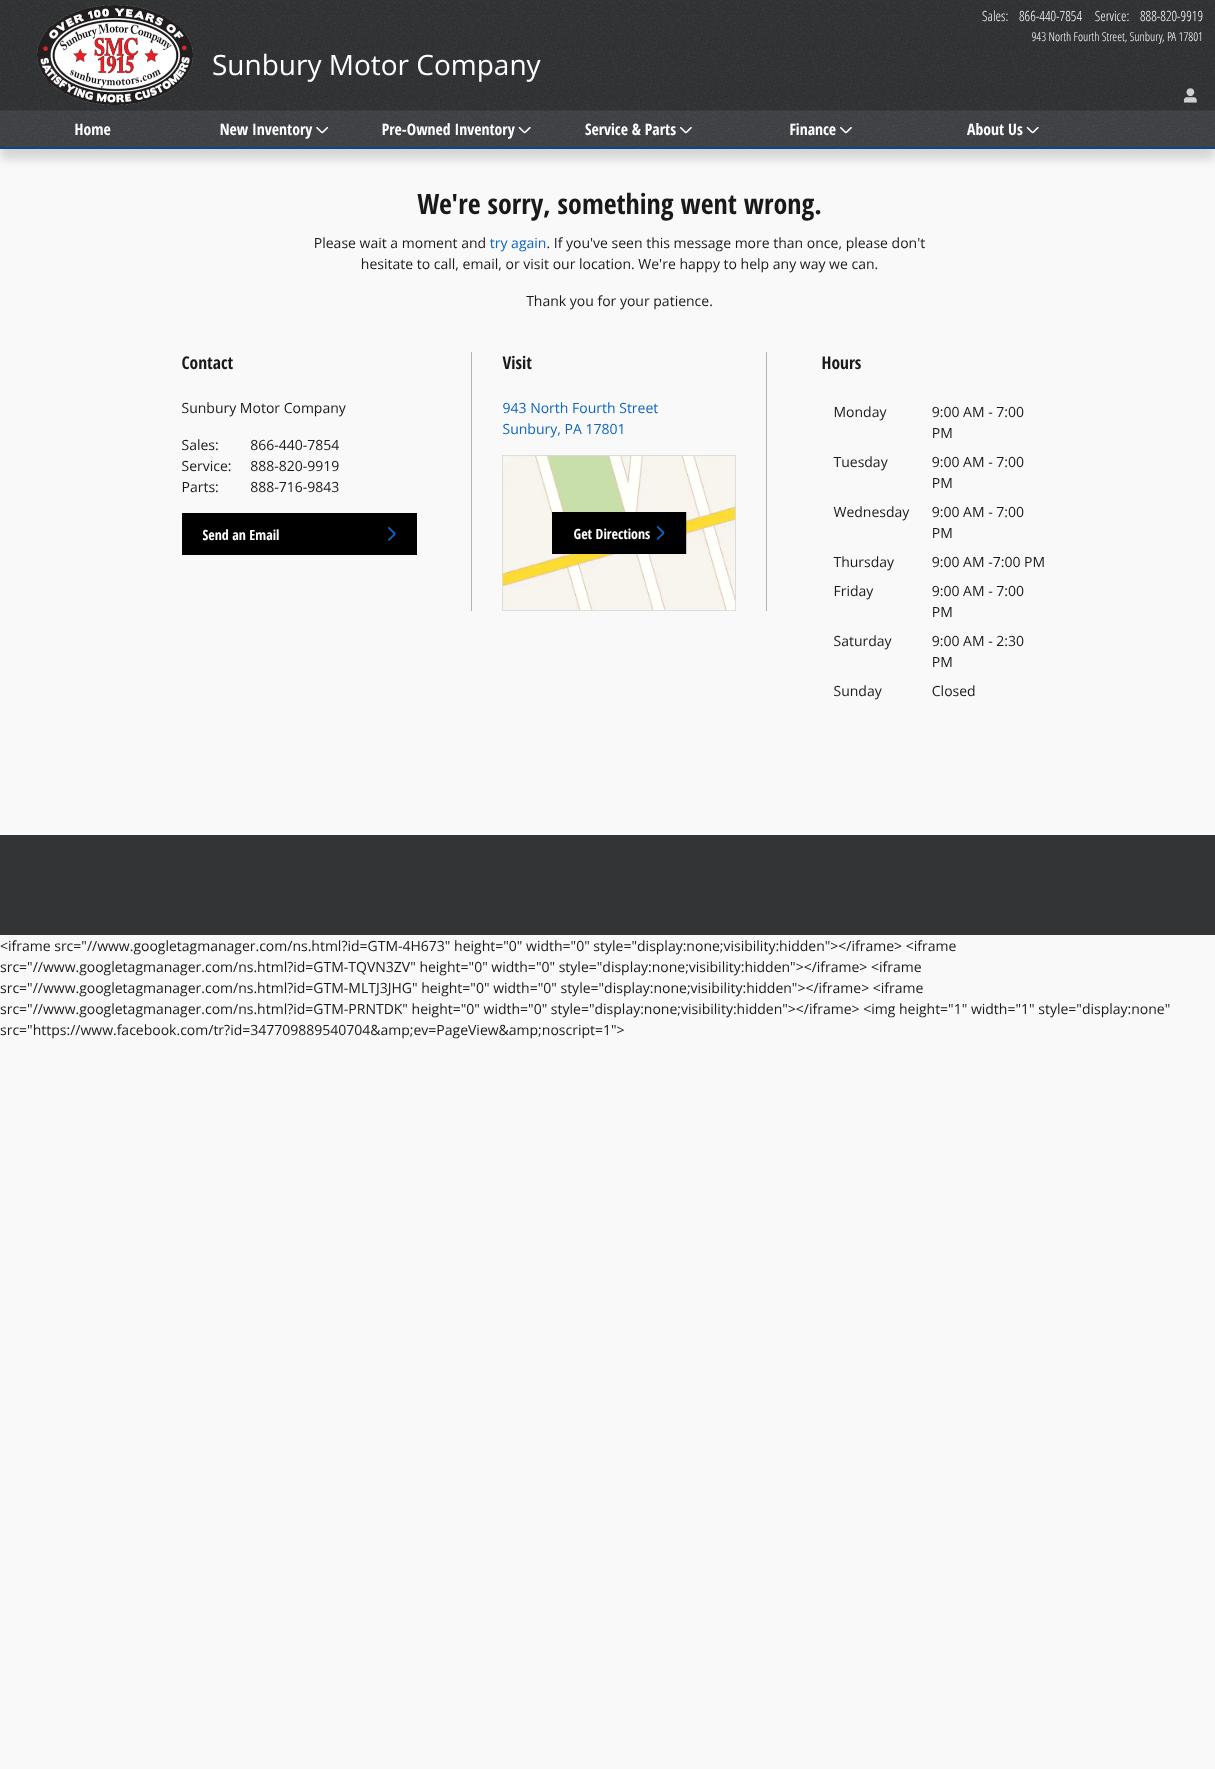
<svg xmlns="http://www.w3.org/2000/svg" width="1215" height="1769">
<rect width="100%" height="100%" fill="#fff"/>
<image href="1.png" x="0" y="0" width="1215" height="1769"/>
</svg>
